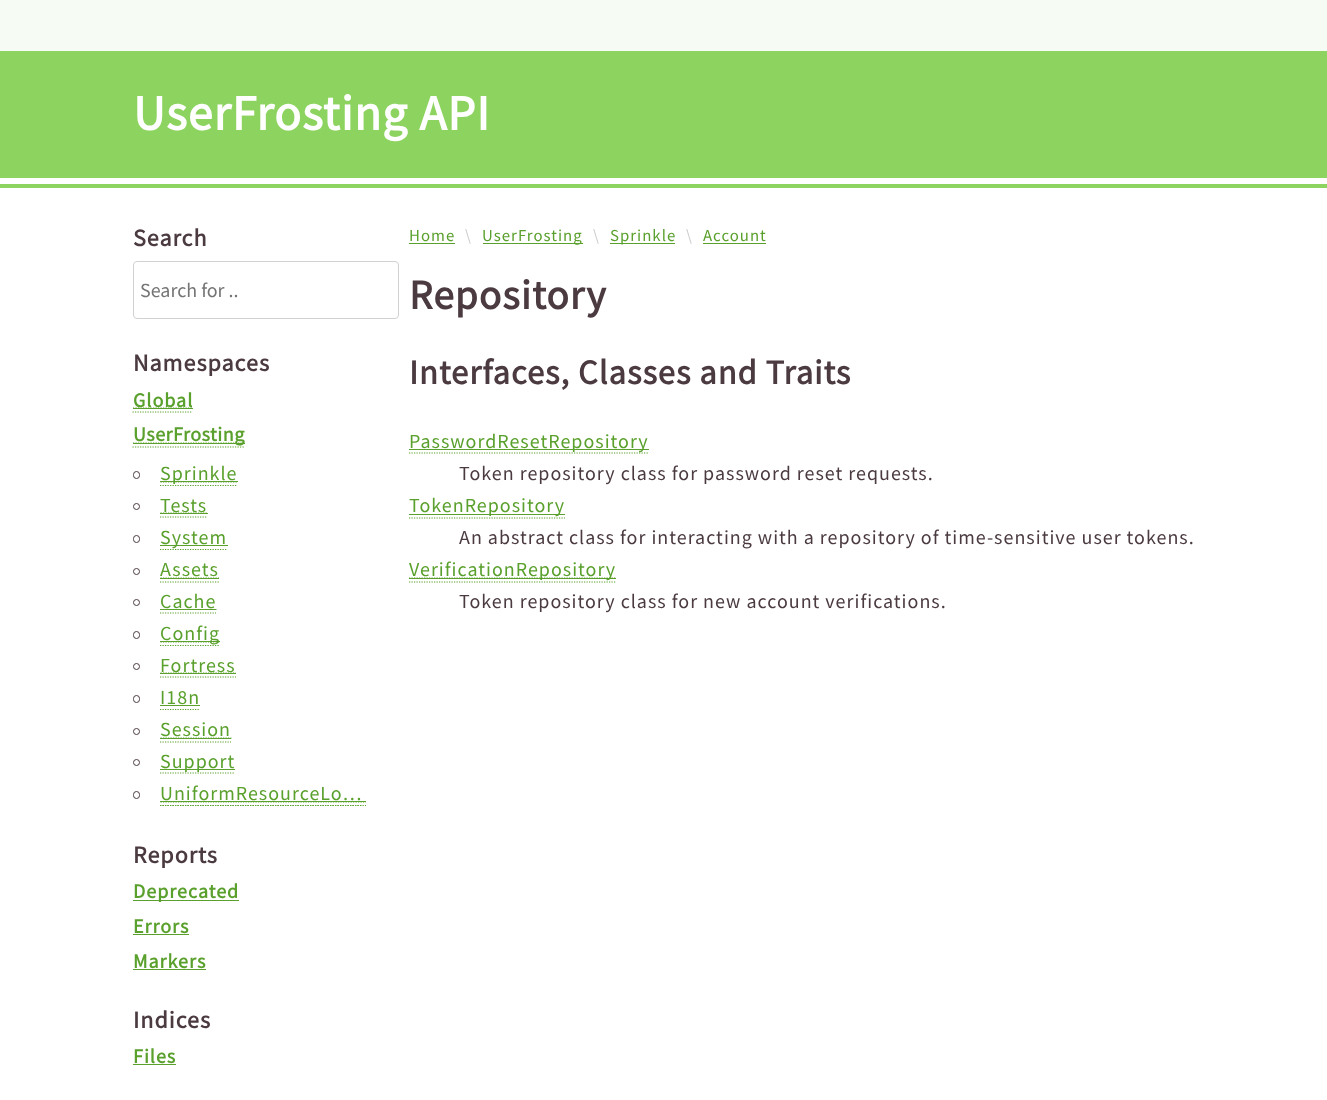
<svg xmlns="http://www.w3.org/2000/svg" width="1327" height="1100">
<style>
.a{font:bold 49.75px Source Sans Pro;letter-spacing:1px;fill:#fff}
.b{font:bold 24px Source Sans Pro;letter-spacing:1px;fill:#4b3b40}
.c{font:20px Source Sans Pro;fill:#757575}
.d{font:bold 20px Source Sans Pro;letter-spacing:1px;fill:#5aa02c}
.e{font:bold 20px Source Sans Pro;letter-spacing:0.5px;fill:#5aa02c}
.f{font:20px Source Sans Pro;letter-spacing:1px;fill:#5aa02c}
.g{font:16.75px Source Sans Pro;letter-spacing:1px;fill:#5aa02c}
.h{font:16.75px Source Sans Pro;letter-spacing:1px;fill:#ccc}
.i{font:bold 41.5px Source Sans Pro;letter-spacing:1px;fill:#4b3b40}
.j{font:bold 34.5px Source Sans Pro;letter-spacing:1px;fill:#4b3b40}
.k{font:20px Source Sans Pro;letter-spacing:1px;fill:#4b3b40}
</style>
<defs>
<clipPath id="clip1"><path d="M133 778h233v31H133z"/></clipPath>
</defs>
<rect width="100%" height="100%" fill="#fff"/>
<path fill="#f6fcf3" d="M0 0h1327v51H0z"/>
<path fill="#8dd35f" d="M0 51h1327v127H0z"/>
<path fill="#8dd35f" d="M0 184h1327v4H0z"/>
<rect fill="none" stroke="#d1d1d1" x="133.5" y="261.5" width="265" height="57" rx="3.5"/>
<path fill="none" stroke="#5aa02c" stroke-width="1.2" stroke-dasharray="1.25 1.25" d="M132.5 412h60m-59.5-4h60"/>
<path fill="#5aa02c" d="M133 408h60v1H133z"/>
<path fill="none" stroke="#5aa02c" stroke-width="1.2" stroke-dasharray="1.25 1.25" d="M132.5 447h112.5"/>
<path fill="none" stroke="#5aa02c" stroke-width="1.2" stroke-dasharray="1.25 1.25" d="M133 443h111.5"/>
<path fill="#5aa02c" d="M133 443h112v1H133z"/>
<rect fill="none" stroke="#4b3b40" x="133.5" y="471.5" width="6" height="7" rx="3"/>
<path fill="none" stroke="#5aa02c" stroke-width="1.2" stroke-dasharray="1.25 1.25" d="M160 485.5h77.5"/>
<path fill="none" stroke="#5aa02c" stroke-width="1.2" stroke-dasharray="1.25 1.25" d="M160.5 482h77.5"/>
<path fill="#5aa02c" d="M160 481h78v1H160z"/>
<circle fill="none" stroke="#4b3b40" cx="136.5" cy="506.5" r="3"/>
<path fill="none" stroke="#5aa02c" stroke-width="1.2" stroke-dasharray="1.25 1.25" d="M160 517h47.5m-47-4h47"/>
<path fill="#5aa02c" d="M160 513h48v1H160z"/>
<rect fill="none" stroke="#4b3b40" x="133.5" y="535.5" width="6" height="7" rx="3"/>
<path fill="none" stroke="#5aa02c" stroke-width="1.2" stroke-dasharray="1.25 1.25" d="M160 549.5h67.5"/>
<path fill="none" stroke="#5aa02c" stroke-width="1.2" stroke-dasharray="1.25 1.25" d="M160.5 545.5h66.5"/>
<path fill="#5aa02c" d="M160 545h68v1H160z"/>
<circle fill="none" stroke="#4b3b40" cx="136.5" cy="571.5" r="3"/>
<path fill="none" stroke="#5aa02c" stroke-width="1.2" stroke-dasharray="1.25 1.25" d="M160 582h59m-58.5-4h58.5"/>
<path fill="#5aa02c" d="M160 578h59v1H160z"/>
<circle fill="none" stroke="#4b3b40" cx="136.5" cy="602.5" r="3"/>
<path fill="none" stroke="#5aa02c" stroke-width="1.2" stroke-dasharray="1.25 1.25" d="M160 613h56m-55.5-3.5h56"/>
<path fill="#5aa02c" d="M160 609h56v1H160z"/>
<rect fill="none" stroke="#4b3b40" x="133.5" y="631.5" width="6" height="7" rx="3"/>
<path fill="none" stroke="#5aa02c" stroke-width="1.2" stroke-dasharray="1.25 1.25" d="M160 645.5h60m-59.5-3.5h60"/>
<path fill="#5aa02c" d="M160 641h60v1H160z"/>
<circle fill="none" stroke="#4b3b40" cx="136.5" cy="666.5" r="3"/>
<path fill="none" stroke="#5aa02c" stroke-width="1.2" stroke-dasharray="1.25 1.25" d="M160 677h76"/>
<path fill="none" stroke="#5aa02c" stroke-width="1.2" stroke-dasharray="1.25 1.25" d="M160.5 673h75.5"/>
<path fill="#5aa02c" d="M160 673h76v1H160z"/>
<rect fill="none" stroke="#4b3b40" x="133.5" y="695.5" width="6" height="7" rx="3"/>
<path fill="none" stroke="#5aa02c" stroke-width="1.2" stroke-dasharray="1.25 1.25" d="M160 709.5h40m-39.5-4h40"/>
<path fill="#5aa02c" d="M160 705h40v1H160z"/>
<circle fill="none" stroke="#4b3b40" cx="136.5" cy="731.5" r="3"/>
<path fill="none" stroke="#5aa02c" stroke-width="1.2" stroke-dasharray="1.25 1.25" d="M160 742h71"/>
<path fill="none" stroke="#5aa02c" stroke-width="1.2" stroke-dasharray="1.25 1.25" d="M160.5 738h71"/>
<path fill="#5aa02c" d="M160 738h71v1H160z"/>
<circle fill="none" stroke="#4b3b40" cx="136.5" cy="762.5" r="3"/>
<path fill="none" stroke="#5aa02c" stroke-width="1.2" stroke-dasharray="1.25 1.25" d="M160 773h75"/>
<path fill="none" stroke="#5aa02c" stroke-width="1.2" stroke-dasharray="1.25 1.25" d="M160.5 769.5h75"/>
<path fill="#5aa02c" d="M160 769h75v1H160z"/>
<rect fill="none" stroke="#4b3b40" x="133.5" y="791.5" width="6" height="7" rx="3"/>
<g clip-path="url(#clip1)">
<path fill="none" stroke="#5aa02c" stroke-width="1.2" stroke-dasharray="1.25 1.25" d="M160 805.5h231"/>
</g>
<path fill="none" stroke="#5aa02c" stroke-width="1.2" stroke-dasharray="1.25 1.25" d="M160 805.5h182.5"/>
<path fill="none" stroke="#5aa02c" stroke-width="1.2" stroke-dasharray="1.25 1.25" d="M342.5 805.5h20"/>
<g clip-path="url(#clip1)">
<path fill="none" stroke="#5aa02c" stroke-width="1.2" stroke-dasharray="1.25 1.25" d="M160.5 802h230.5"/>
</g>
<path fill="#5aa02c" d="M160 801h206v1H160z"/>
<path fill="#5aa02c" d="M133 900h106v1H133z"/>
<path fill="#5aa02c" d="M133 934h56v1H133z"/>
<path fill="#5aa02c" d="M133 969h73v1H133z"/>
<path fill="#5aa02c" d="M133 1064h43v1H133z"/>
<path fill="#5aa02c" d="M409 243h46v1H409z"/>
<path fill="#5aa02c" d="M483 243h100v1H483z"/>
<path fill="#5aa02c" d="M610 243h65v1H610z"/>
<path fill="#5aa02c" d="M703 243h63v1H703z"/>
<path fill="none" stroke="#5aa02c" stroke-width="1.2" stroke-dasharray="1.25 1.25" d="M409 453h240"/>
<path fill="none" stroke="#5aa02c" stroke-width="1.2" stroke-dasharray="1.25 1.25" d="M409 449.5h239.5"/>
<path fill="#5aa02c" d="M409 449h240v1H409z"/>
<path fill="none" stroke="#5aa02c" stroke-width="1.2" stroke-dasharray="1.25 1.25" d="M409 518h156"/>
<path fill="none" stroke="#5aa02c" stroke-width="1.2" stroke-dasharray="1.25 1.25" d="M409 514.5h156"/>
<path fill="#5aa02c" d="M409 514h156v1H409z"/>
<path fill="none" stroke="#5aa02c" stroke-width="1.2" stroke-dasharray="1.25 1.25" d="M409 582h207"/>
<path fill="none" stroke="#5aa02c" stroke-width="1.2" stroke-dasharray="1.25 1.25" d="M409 578h207"/>
<path fill="#5aa02c" d="M409 578h207v1H409z"/>
<text class="a" x="133" y="130">UserFrosting API</text>
<text class="b" x="133" y="246">Search</text>
<text class="c" x="140" y="297">Search for ..</text>
<text class="b" x="133" y="371">Namespaces</text>
<text class="d" x="133" y="407">Global</text>
<text class="e" x="133" y="441">UserFrosting</text>
<text class="f" x="160" y="480">Sprinkle</text>
<text class="f" x="160" y="512">Tests</text>
<text class="f" x="160" y="544">System</text>
<text class="f" x="160" y="576">Assets</text>
<text class="f" x="160" y="608">Cache</text>
<text class="f" x="160" y="640">Config</text>
<text class="f" x="160" y="672">Fortress</text>
<text class="f" x="160" y="704">I18n</text>
<text class="f" x="160" y="736">Session</text>
<text class="f" x="160" y="768">Support</text>
<text class="f" x="160" y="800">UniformResourceLo…</text>
<text class="b" x="133" y="863">Reports</text>
<text class="d" x="133" y="898">Deprecated</text>
<text class="d" x="133" y="933">Errors</text>
<text class="d" x="133" y="968">Markers</text>
<text class="b" x="133" y="1028">Indices</text>
<text class="d" x="133" y="1063">Files</text>
<text class="g" x="409" y="241">Home</text>
<text class="h" x="465" y="241">\</text>
<text class="g" x="482" y="241">UserFrosting</text>
<text class="h" x="593" y="241">\</text>
<text class="g" x="610" y="241">Sprinkle</text>
<text class="h" x="686" y="241">\</text>
<text class="g" x="703" y="241">Account</text>
<text class="i" x="409" y="309">Repository</text>
<text class="j" x="409" y="384">Interfaces, Classes and Traits</text>
<text class="f" x="409" y="448">PasswordResetRepository</text>
<text class="k" x="459" y="480">Token repository class for password reset requests.</text>
<text class="f" x="409" y="512">TokenRepository</text>
<text class="k" x="459" y="544">An abstract class for interacting with a repository of time-sensitive user tokens.</text>
<text class="f" x="409" y="576">VerificationRepository</text>
<text class="k" x="459" y="608">Token repository class for new account verifications.</text>
</svg>
